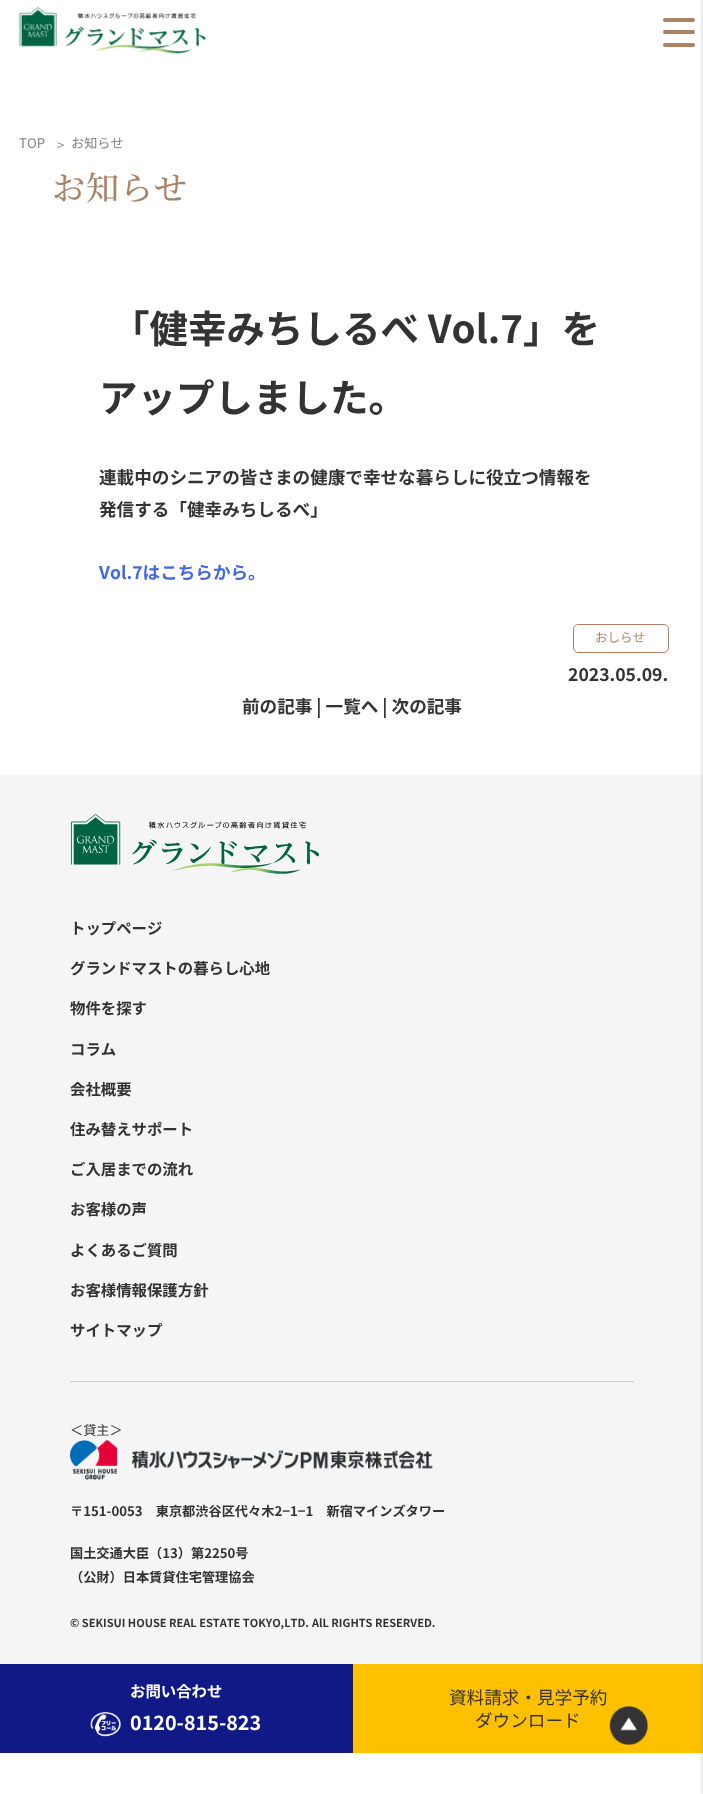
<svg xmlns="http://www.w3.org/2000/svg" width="703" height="1794">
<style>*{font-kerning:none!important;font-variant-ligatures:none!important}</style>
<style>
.a{font:13.2px Noto Sans JP;fill:#808080}
.b{font:500 33px Noto Serif JP;letter-spacing:1px;fill:#aa8264}
.c{font:bold 38.5px Noto Sans JP;fill:#333}
.d{font:bold 17.6px Noto Sans JP;fill:#333}
.e{font:bold 17.6px Noto Sans JP;fill:#4169e1}
.f{font:12.5px Noto Sans JP;fill:#b18167}
.g{font:bold 15.4px Noto Sans JP;fill:#333}
.h{font:13.2px Noto Sans JP;fill:#333}
.i{font:bold 13.2px Noto Sans JP;fill:#333}
.j{font:bold 11px Noto Sans JP;fill:#333}
.k{font:bold 15.4px Noto Sans JP;fill:#fff}
.l{font:bold 19.75px Noto Sans JP;fill:#fff}
.m{font:17.6px Noto Sans JP;fill:#333}
</style>
<rect width="100%" height="100%" fill="#fff"/>
<image href="1.png" x="18" y="7" width="188" height="47"/>
<rect fill="#aa8264" x="663" y="30" width="32" height="4" rx="2"/>
<rect fill="#aa8264" x="663" y="18" width="32" height="4" rx="2"/>
<rect fill="#aa8264" x="663" y="43" width="32" height="4" rx="2"/>
<path fill="#f5f5f5" d="M0 775h703v889H0z"/>
<path fill="#ffc000" d="M353 1664h350v89H353z"/>
<path fill="#969696" filter="blur(2px)" d="M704 -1h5v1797H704z"/>
<rect fill="none" stroke="#b18167" x="573.5" y="624.5" width="95" height="28" rx="4.5"/>
<image href="2.png" x="70" y="813" width="249" height="61"/>
<path fill="#ccc" d="M70 1381h564v1H70z"/>
<image href="3.png" x="70" y="1440" width="363" height="40"/>
<path fill="#111987" d="M0 1664h353v89H0z"/>
<image href="4.png" x="90" y="1712" width="31" height="25"/>
<image href="5.png" x="609" y="1706" width="39" height="39"/>
<text class="a" x="19" y="148">TOP</text>
<text class="a" x="57" y="150">&gt;</text>
<text class="a" x="71" y="148">お知らせ</text>
<text class="b" x="52" y="200">お知らせ</text>
<text class="c" x="111" y="343">「健幸みちしるべ Vol.7」を</text>
<text class="c" x="99" y="412">アップしました。</text>
<text class="d" x="99" y="484">連載中のシニアの皆さまの健康で幸せな暮らしに役立つ情報を</text>
<text class="d" x="99" y="516">発信する「健幸みちしるべ」</text>
<text class="e" x="99" y="579">Vol.7はこちらから。</text>
<text class="f" x="595" y="642">おしらせ</text>
<text class="d" x="568" y="681">2023.05.09.</text>
<text class="d" x="242" y="713">前の記事 | 一覧へ | 次の記事</text>
<text class="g" x="70" y="934">トップページ</text>
<text class="g" x="70" y="974">グランドマストの暮らし心地</text>
<text class="g" x="70" y="1014">物件を探す</text>
<text class="g" x="70" y="1055">コラム</text>
<text class="g" x="70" y="1095">会社概要</text>
<text class="g" x="70" y="1135">住み替えサポート</text>
<text class="g" x="70" y="1175">ご入居までの流れ</text>
<text class="g" x="70" y="1215">お客様の声</text>
<text class="g" x="70" y="1256">よくあるご質問</text>
<text class="g" x="70" y="1296">お客様情報保護方針</text>
<text class="g" x="70" y="1336">サイトマップ</text>
<text class="h" x="70" y="1435">＜貸主＞</text>
<text class="i" x="70" y="1516">〒151-0053　東京都渋谷区代々木2−1−1　新宿マインズタワー</text>
<text class="i" x="70" y="1558">国土交通大臣（13）第2250号</text>
<text class="i" x="70" y="1582">（公財）日本賃貸住宅管理協会</text>
<text class="j" x="70" y="1627">© SEKISUI HOUSE REAL ESTATE TOKYO,LTD.</text>
<text class="j" x="312" y="1627">AlL RIGHTS RESERVED.</text>
<text class="k" x="130" y="1697">お問い合わせ</text>
<text class="l" x="130" y="1730">0120-815-823</text>
<text class="m" x="449" y="1704">資料請求・見学予約</text>
<text class="m" x="475" y="1727">ダウンロード</text>
</svg>
